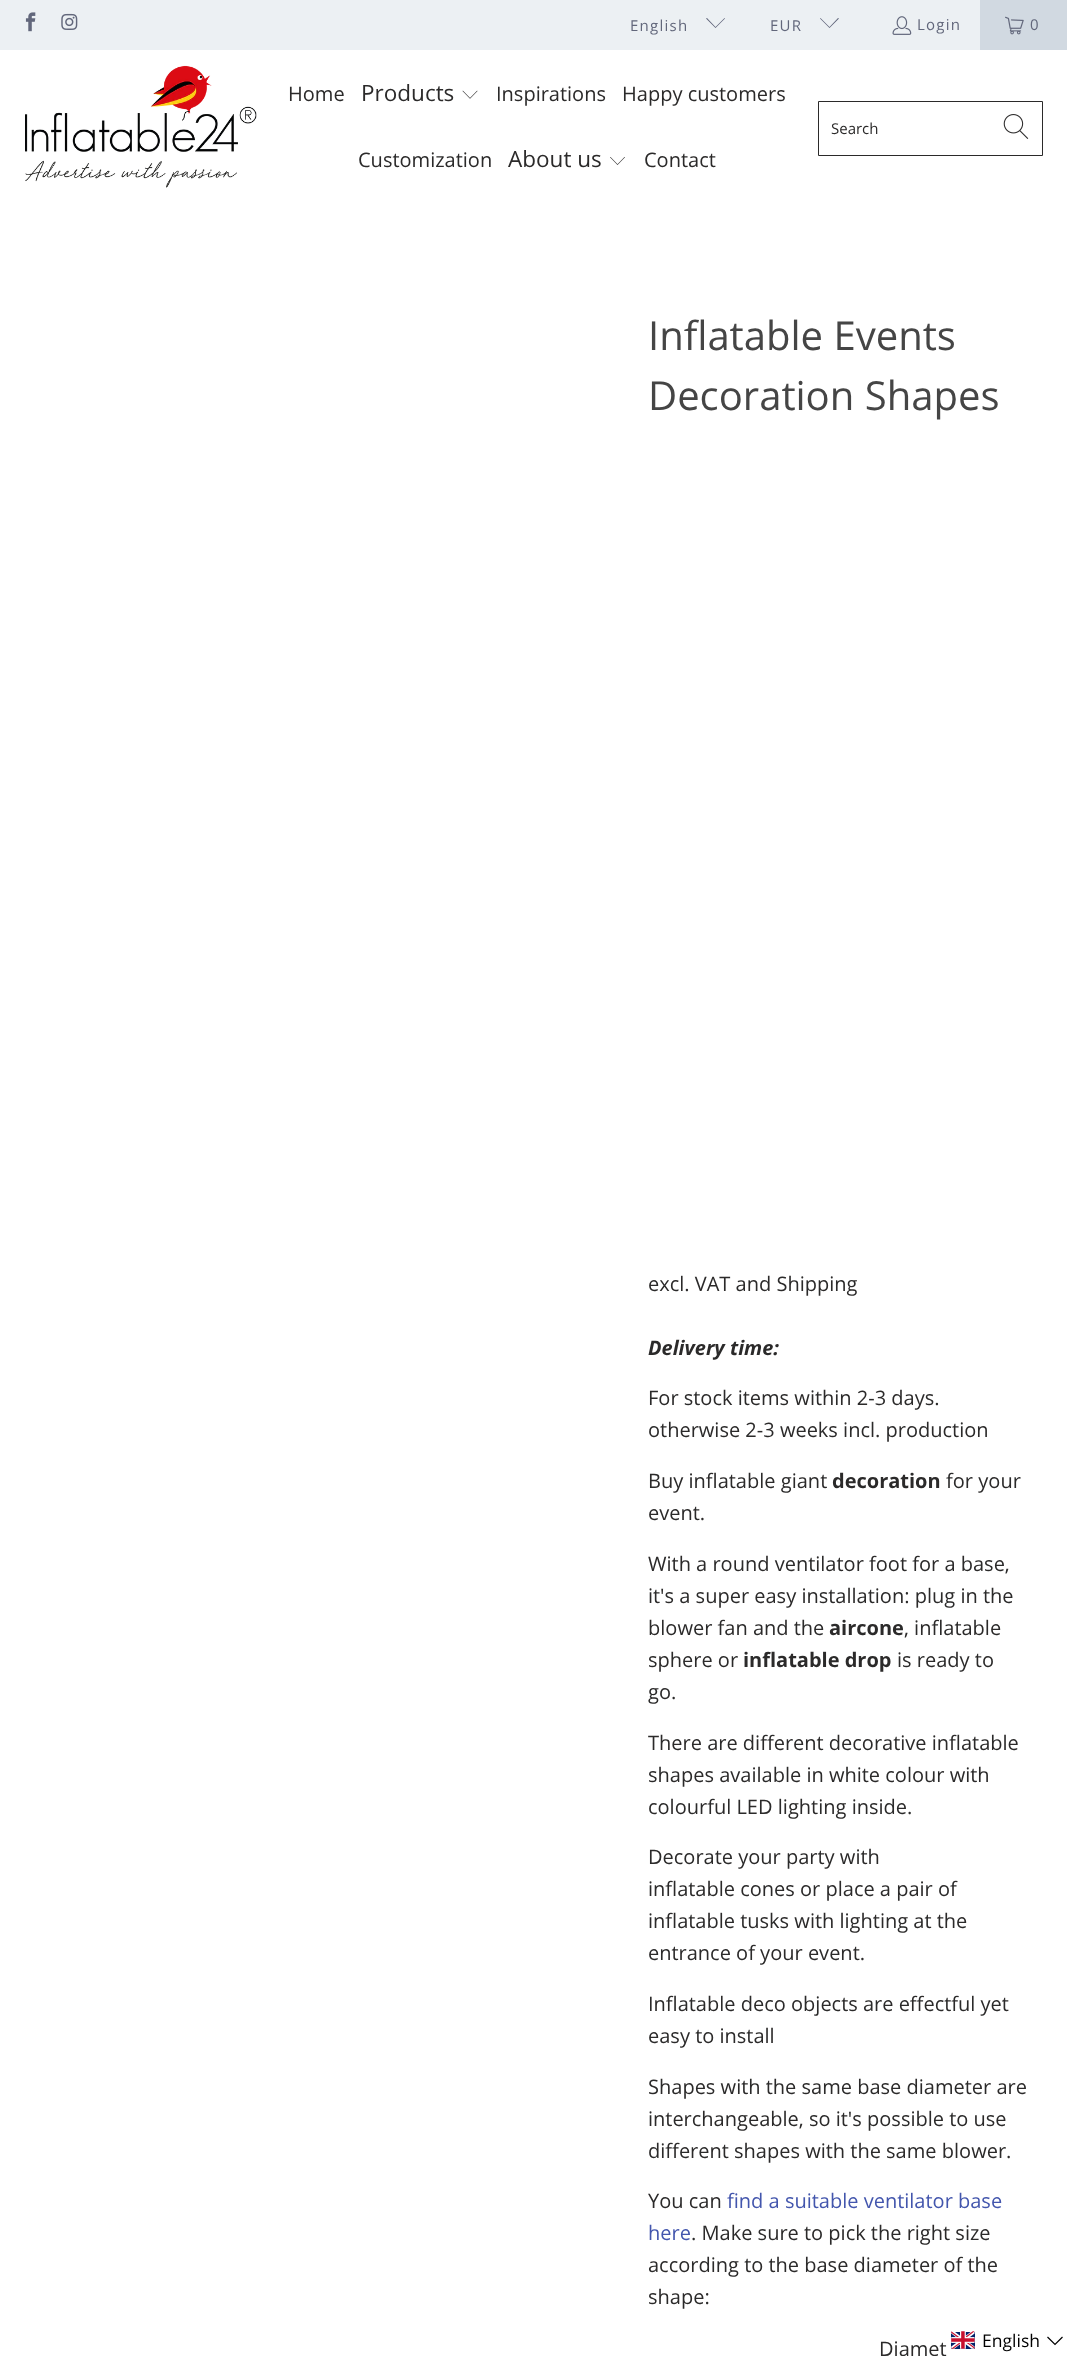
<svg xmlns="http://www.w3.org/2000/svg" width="1067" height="2356">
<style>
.a{font:15px Open Sans;letter-spacing:1.25px;fill:#62677b}
.b{font:20px Open Sans;fill:#2b2a2a}
.c{font:22.5px Open Sans;fill:#2b2a2a}
.d{font:15px Open Sans;fill:#2b2a2a}
.e{font:40px Open Sans;fill:#454545}
.f{font:italic bold 20px Open Sans;fill:#2b2a2a}
.g{font:bold 20px Open Sans;fill:#2b2a2a}
.h{font:20px Open Sans;fill:#4356ad}
.i{font:17.5px Open Sans;fill:#000}
</style>
<rect width="100%" height="100%" fill="#fff"/>
<path fill="#ecf0f3" d="M0 0h980v50H0z"/>
<image href="1.png" x="25" y="12" width="11" height="20"/>
<image href="2.png" x="61" y="13" width="17" height="17"/>
<path fill="#62677b" d="M715.5 28l-9.5-9.5l1-.5l8.5 9l9-9l.5 .5z"/>
<path fill="#62677b" d="M829.5 28l-9.5-9.5l.5-.5l9 9l8.5-9l1 .5z"/>
<image href="3.png" x="892" y="16" width="20" height="19"/>
<path fill="#d1d9e1" d="M980 0h87v50H980z"/>
<image href="4.png" x="1005" y="16" width="19" height="19"/>
<image href="5.png" x="25" y="65" width="232" height="123"/>
<image href="6.png" x="462" y="90" width="16" height="9"/>
<image href="7.png" x="610" y="157" width="15" height="8"/>
<path fill="none" stroke="#2b2a2a" d="M818.5 101.5h224v54H818.5z"/>
<image href="8.png" x="1003" y="114" width="26" height="25"/>
<image href="9.png" x="951" y="2331" width="24" height="18"/>
<path fill="none" stroke="#000" stroke-width="1.2" d="M1047.5 2337l7.5 7.5l7.5-7.5"/>
<text class="a" x="630" y="31">English</text>
<text class="a" x="770" y="31">EUR</text>
<text class="a" x="917" y="30">Login</text>
<text class="a" x="1030" y="30">0</text>
<text class="b" x="288" y="101">Home</text>
<text class="c" x="361" y="101">Products</text>
<text class="b" x="496" y="101">Inspirations</text>
<text class="b" x="622" y="101">Happy customers</text>
<text class="b" x="358" y="167">Customization</text>
<text class="c" x="508" y="167">About us</text>
<text class="b" x="644" y="167">Contact</text>
<text class="d" x="831" y="134">Search</text>
<text class="e" x="648" y="350">Inflatable Events</text>
<text class="e" x="648" y="410">Decoration Shapes</text>
<text class="b" x="648" y="1291">excl. VAT and Shipping</text>
<text class="f" x="648" y="1355">Delivery time:</text>
<text class="b" x="648" y="1405">For stock items within 2-3 days.</text>
<text class="b" x="648" y="1437">otherwise 2-3 weeks incl. production</text>
<text class="b" x="648" y="1488">Buy inflatable giant</text>
<text class="g" x="832" y="1488">decoration</text>
<text class="b" x="946" y="1488">for your</text>
<text class="b" x="648" y="1520">event.</text>
<text class="b" x="648" y="1571">With a round ventilator foot for a base,</text>
<text class="b" x="648" y="1603">it's a super easy installation: plug in the</text>
<text class="b" x="648" y="1635">blower fan and the</text>
<text class="g" x="829" y="1635">aircone</text>
<text class="b" x="904" y="1635">, inflatable</text>
<text class="b" x="648" y="1667">sphere or</text>
<text class="g" x="743" y="1667">inflatable drop</text>
<text class="b" x="897" y="1667">is ready to</text>
<text class="b" x="648" y="1699">go.</text>
<text class="b" x="648" y="1750">There are different decorative inflatable</text>
<text class="b" x="648" y="1782">shapes available in white colour with</text>
<text class="b" x="648" y="1814">colourful LED lighting inside.</text>
<text class="b" x="648" y="1864">Decorate your party with</text>
<text class="b" x="648" y="1896">inflatable cones or place a pair of</text>
<text class="b" x="648" y="1928">inflatable tusks with lighting at the</text>
<text class="b" x="648" y="1960">entrance of your event.</text>
<text class="b" x="648" y="2011">Inflatable deco objects are effectful yet</text>
<text class="b" x="648" y="2043">easy to install</text>
<text class="b" x="648" y="2094">Shapes with the same base diameter are</text>
<text class="b" x="648" y="2126">interchangeable, so it's possible to use</text>
<text class="b" x="648" y="2158">different shapes with the same blower.</text>
<text class="b" x="648" y="2208">You can</text>
<text class="h" x="727" y="2208">find a suitable ventilator base</text>
<text class="h" x="648" y="2240">here</text>
<text class="b" x="691" y="2240">. Make sure to pick the right size</text>
<text class="b" x="648" y="2272">according to the base diameter of the</text>
<text class="b" x="648" y="2304">shape:</text>
<text class="b" x="879" y="2356">Diamet</text>
<text class="i" x="982" y="2347">English</text>
</svg>
